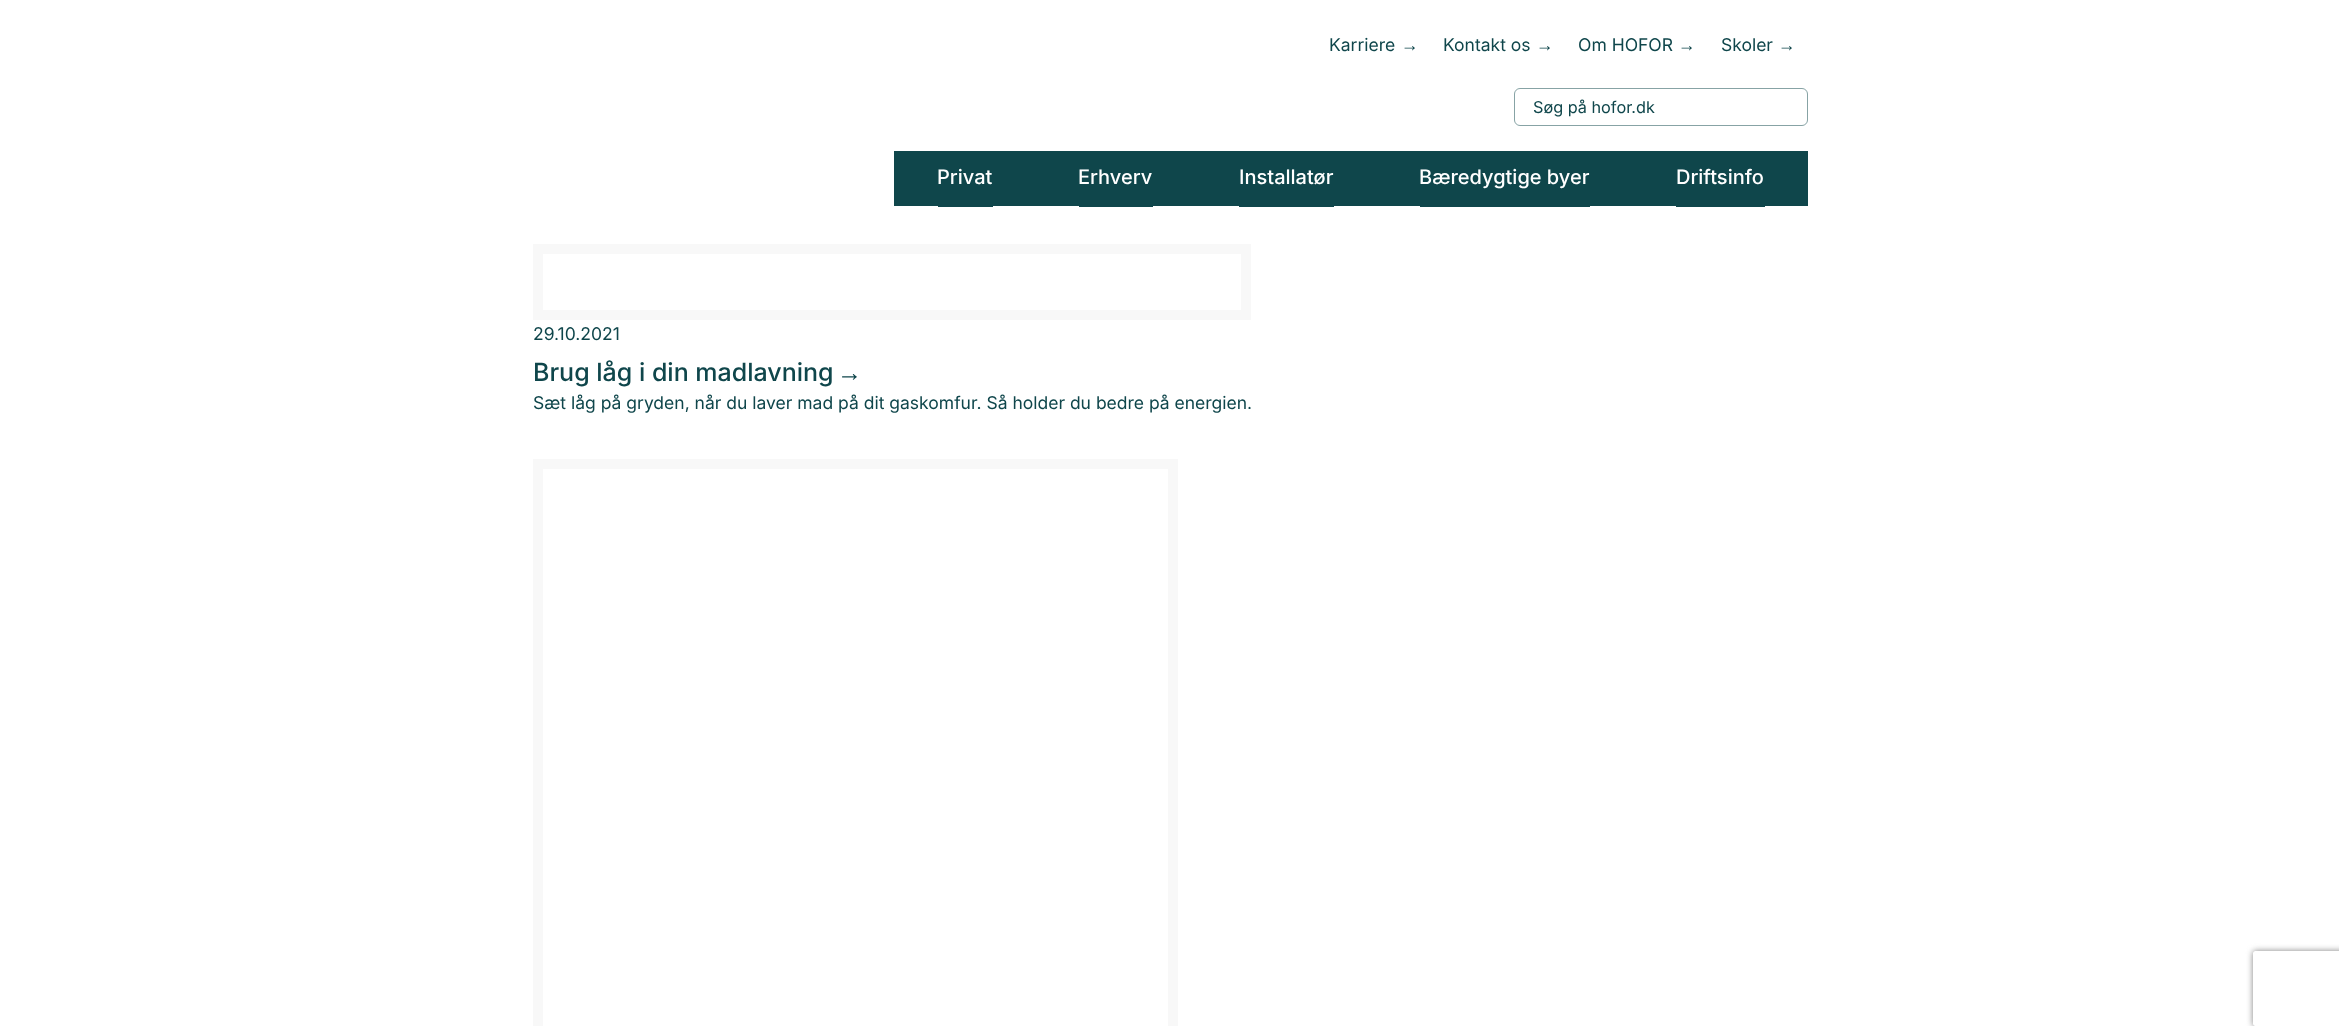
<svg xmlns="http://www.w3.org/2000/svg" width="2339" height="1026">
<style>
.a{font:17.5px Inter;fill:#0f464b}
.b{font:17.5px Liberation Serif;fill:#0f464b}
.c{font:16.25px Inter;fill:#0f464b}
.d{font:500 20px Inter;fill:#fff}
.e{font:500 25px Inter;fill:#0f464b}
.f{font:25px Liberation Serif;fill:#0f464b}
</style>
<defs>
<clipPath id="clip1"><path d="M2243 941h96v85h-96zm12.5 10h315c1.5 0 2.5 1 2.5 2.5v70c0 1.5-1 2.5-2.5 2.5h-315c-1.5 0-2.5-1-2.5-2.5v-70c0-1.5 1-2.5 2.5-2.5z" clip-rule="evenodd"/></clipPath>
</defs>
<rect width="100%" height="100%" fill="#fff"/>
<rect fill="none" stroke="#87a3a5" x="1514.5" y="88.5" width="293" height="37" rx="5.5"/>
<path fill="#0f464b" d="M894 151h914v55H894z"/>
<path fill="#0f464b" d="M938 206h55v1H938z"/>
<path fill="#0f464b" d="M1079 206h74v1H1079z"/>
<path fill="#0f464b" d="M1239 206h95v1H1239z"/>
<path fill="#0f464b" d="M1420 206h170v1H1420z"/>
<path fill="#0f464b" d="M1676 206h89v1H1676z"/>
<path fill="none" stroke="#f8f8f8" stroke-width="10" d="M538 249h708v66H538z"/>
<path fill="none" stroke="#f8f8f8" stroke-width="10" d="M538 464h635v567H538z"/>
<g clip-path="url(#clip1)">
<rect fill="#808080" filter="blur(3px)" x="2253" y="951" width="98" height="75" rx="2.5"/>
</g>
<text class="a" x="1329" y="51">Karriere</text>
<text class="b" x="1401" y="51">→</text>
<text class="a" x="1443" y="51">Kontakt os</text>
<text class="b" x="1536" y="51">→</text>
<text class="a" x="1578" y="51">Om HOFOR</text>
<text class="b" x="1678" y="51">→</text>
<text class="a" x="1721" y="51">Skoler</text>
<text class="b" x="1778" y="51">→</text>
<text class="c" x="1533" y="113">Søg på hofor.dk</text>
<text class="d" x="937" y="184">Privat</text>
<text class="d" x="1078" y="184">Erhverv</text>
<text class="d" x="1239" y="184">Installatør</text>
<text class="d" x="1419" y="184">Bæredygtige byer</text>
<text class="d" x="1676" y="184">Driftsinfo</text>
<text class="a" x="533" y="340">29.10.2021</text>
<text class="e" x="533" y="381">Brug låg i din madlavning</text>
<text class="f" x="837" y="381">→</text>
<text class="a" x="533" y="409">Sæt låg på gryden, når du laver mad på dit gaskomfur. Så holder du bedre på energien.</text>
</svg>
